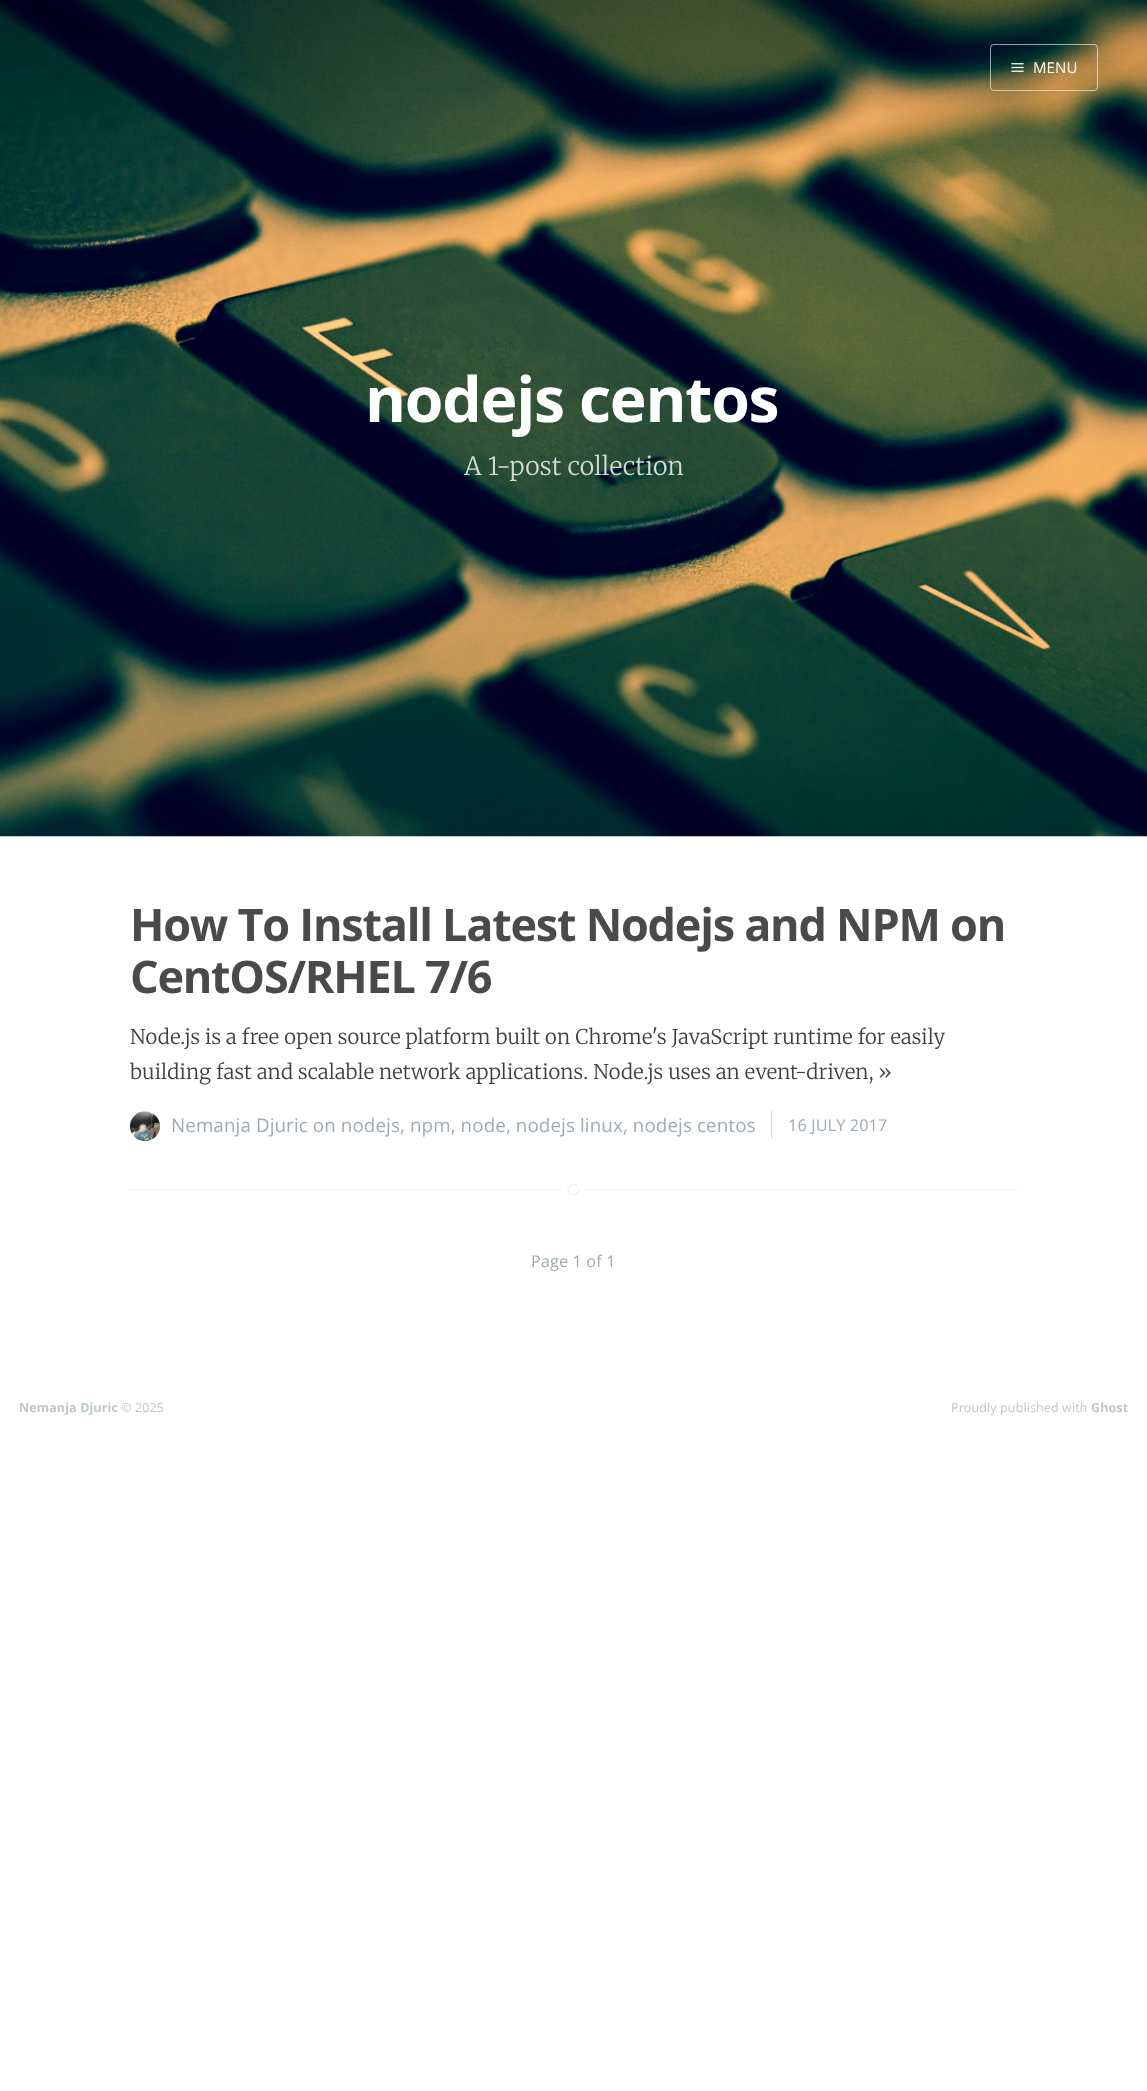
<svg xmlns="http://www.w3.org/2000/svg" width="1147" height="2091">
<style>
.a{font:15px Open Sans;letter-spacing:0.12px;fill:#fff}
.b{font:bold 62.5px Open Sans;letter-spacing:-1.25px;fill:#fff}
.c{font:300 25px Merriweather;letter-spacing:0.12px;fill:#d3dad6}
.d{font:bold 45px Open Sans;letter-spacing:-1.25px;fill:#4a4a4a}
.e{font:300 20.25px Merriweather;letter-spacing:0.12px;fill:#3a4145}
.f{font:300 20.25px Merriweather;letter-spacing:0.12px;fill:#4a4a4a}
.g{font:18.75px Open Sans;letter-spacing:0.12px;fill:#9eabb3}
.h{font:16.25px Open Sans;letter-spacing:0.12px;fill:#9eabb3}
.i{font:bold 12.5px Open Sans;letter-spacing:0.12px;fill:#bbc7cc}
.j{font:12.5px Open Sans;letter-spacing:0.12px;fill:#bbc7cc}
</style>
<rect width="100%" height="100%" fill="#fff"/>
<image href="1.png" x="0" y="0" width="1147" height="837"/>
<rect fill="none" stroke="#ffffff99" x="990.5" y="44.5" width="107" height="46" rx="3.5"/>
<image href="2.png" x="1011" y="63" width="13" height="9"/>
<path fill="#ebf2f6" d="M130 1189h888v1H130z"/>
<image href="3.png" x="130" y="1111" width="30" height="31"/>
<path fill="#d5dbde" d="M771 1111h1v28H771z"/>
<rect fill="none" stroke="#fff" stroke-width="6" x="564" y="1181" width="18" height="17" rx="8.5"/>
<circle fill="#fff" stroke="#e7eef2" cx="573.5" cy="1189.5" r="5"/>
<text class="a" x="1033" y="73">MENU</text>
<text class="b" x="365" y="422">nodejs centos</text>
<text class="c" x="464" y="475">A 1-post collection</text>
<text class="d" x="130" y="941">How To Install Latest Nodejs and NPM on</text>
<text class="d" x="130" y="993">CentOS/RHEL 7/6</text>
<text class="e" x="130" y="1044">Node.js is a free open source platform built on Chrome's JavaScript runtime for easily</text>
<text class="e" x="130" y="1079">building fast and scalable network applications. Node.js uses an event-driven,</text>
<text class="f" x="878" y="1079">»</text>
<text class="g" x="171" y="1132">Nemanja Djuric on nodejs, npm, node, nodejs linux, nodejs centos</text>
<text class="h" x="788" y="1131">16 JULY 2017</text>
<text class="h" x="531" y="1267">Page 1 of 1</text>
<text class="i" x="19" y="1412">Nemanja Djuric</text>
<text class="j" x="121" y="1412">© 2025</text>
<text class="j" x="951" y="1412">Proudly published with</text>
<text class="i" x="1091" y="1412">Ghost</text>
</svg>
